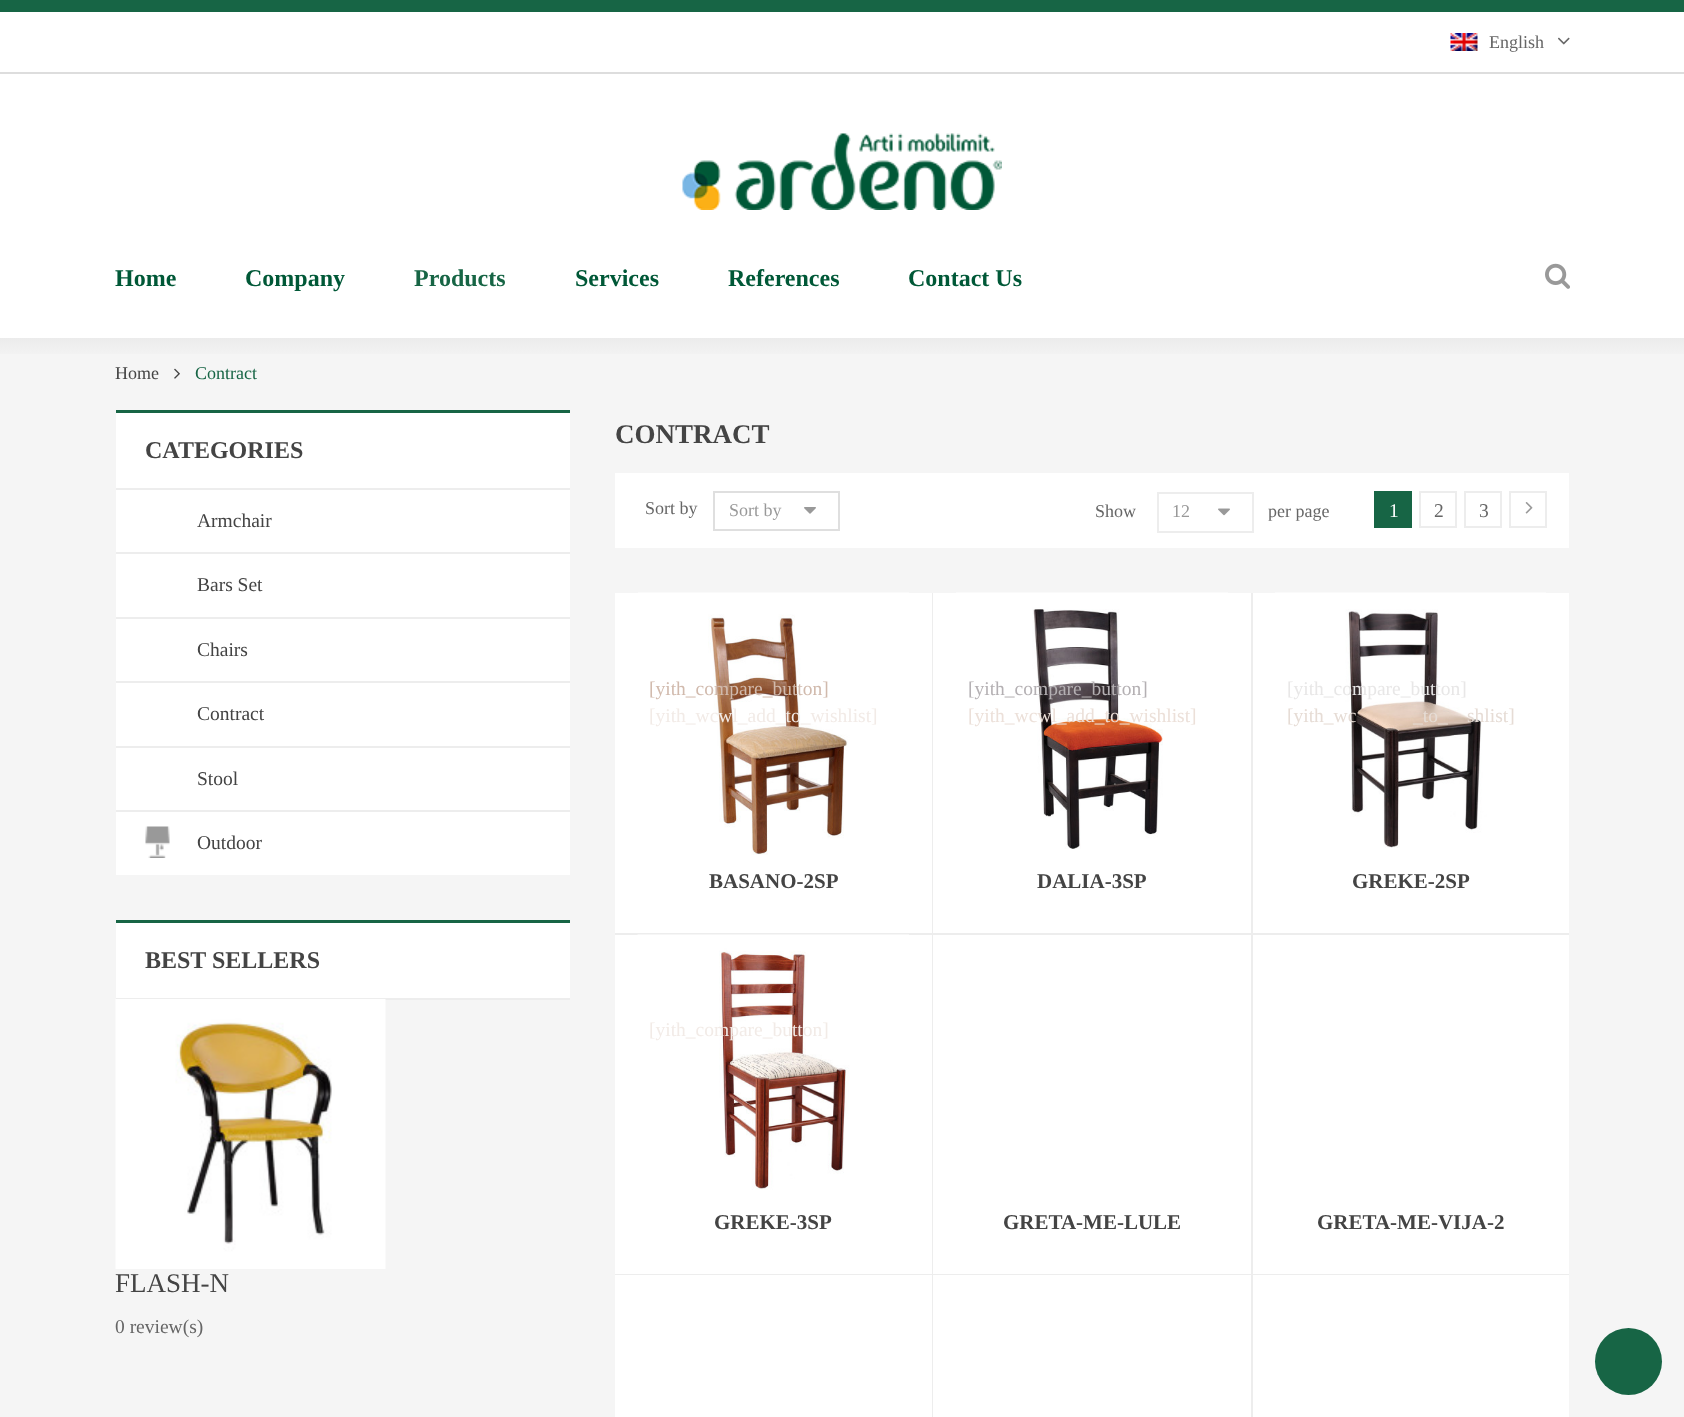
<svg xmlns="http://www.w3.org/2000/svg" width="1684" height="1417">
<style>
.a{font:18px Liberation Serif;fill:#666}
.b{font:bold 24px Liberation Serif;fill:#005837}
.c{font:bold 24px Liberation Serif;fill:#176545}
.d{font:18px Liberation Serif;fill:#444}
.e{font:18px Liberation Serif;fill:#176545}
.f{font:bold 24px Liberation Serif;fill:#444}
.g{font:19.5px Liberation Serif;fill:#444}
.h{font:27px Liberation Serif;fill:#444}
.i{font:19.5px Liberation Serif;fill:#666}
.j{font:bold 27px Liberation Serif;fill:#444}
.k{font:18px Liberation Serif;fill:#999}
.l{font:19.5px Liberation Serif;fill:#fff}
.m{font:19.5px Liberation Serif;fill:#d1baad}
.n{font:19.5px Liberation Serif;fill:#f2ebe7}
.o{font:bold 21px Liberation Serif;fill:#444}
.p{font:19.5px Liberation Serif;fill:#b4b0b3}
.q{font:19.5px Liberation Serif;fill:#ece0d9}
.r{font:19.5px Liberation Serif;fill:#e8e7e7}
.s{font:19.5px Liberation Serif;fill:#e6dcd5}
</style>
<defs>
<linearGradient id="g1" gradientUnits="userSpaceOnUse" x1="842" y1="337" x2="842" y2="360"><stop offset="0" stop-color="#ebebeb"/><stop offset="1" stop-color="#f5f5f5"/></linearGradient>
</defs>
<rect width="100%" height="100%" fill="#f5f5f5"/>
<path fill="#fff" d="M0 12h1684v326H0z"/>
<path fill="#176545" d="M0 0h1684v12H0z"/>
<path fill="#ddd" d="M0 72h1684v2H0z"/>
<image href="1.png" x="1450" y="33" width="28" height="18"/>
<image href="2.png" x="1558" y="37" width="12" height="8"/>
<image href="3.png" x="682" y="133" width="320" height="77"/>
<image href="4.png" x="1545" y="263" width="25" height="26"/>
<path fill="url(#g1)" d="M0 338h1684v16H0z"/>
<image href="5.png" x="174" y="368" width="6" height="11"/>
<path fill="#fff" d="M116 413h454v462H116z"/>
<path fill="#176545" d="M116 410h454v3H116z"/>
<path fill="#ededed" d="M116 488h454v2H116z"/>
<path fill="#ededed" d="M116 552h454v2H116z"/>
<path fill="#ededed" d="M116 617h454v2H116z"/>
<path fill="#ededed" d="M116 681h454v2H116z"/>
<path fill="#ededed" d="M116 746h454v2H116z"/>
<path fill="#ededed" d="M116 810h454v2H116z"/>
<image href="6.png" x="145" y="826" width="25" height="32"/>
<path fill="#fff" d="M116 923h454v75H116z"/>
<path fill="#176545" d="M116 920h454v3H116z"/>
<path fill="#ededed" d="M116 998h454v2H116z"/>
<image href="7.png" x="115" y="999" width="271" height="270"/>
<path fill="#fff" d="M615 473h954v75H615z"/>
<path fill="none" stroke="#dfdfdf" stroke-width="2" d="M714 492h125v38H714z"/>
<image href="8.png" x="804" y="507" width="12" height="7"/>
<path fill="none" stroke="#ededed" stroke-width="2" d="M1158 493h95v39H1158z"/>
<image href="9.png" x="1218" y="508" width="12" height="8"/>
<path fill="#176545" d="M1374 491h38v37H1374z"/>
<path fill="none" stroke="#ededed" stroke-width="2" d="M1420 492h36v35H1420z"/>
<path fill="none" stroke="#ededed" stroke-width="2" d="M1465 492h36v35H1465z"/>
<path fill="none" stroke="#ededed" stroke-width="2" d="M1510 492h36v35H1510z"/>
<image href="10.png" x="1525" y="502" width="8" height="12"/>
<path fill="#fff" d="M615 593h317v340H615z"/>
<path fill="#ededed" d="M932 593h1v824H932z"/>
<path fill="#ededed" d="M615 933h318v2H615z"/>
<image href="11.png" x="638" y="592" width="271" height="263"/>
<path fill="#fff" d="M933 593h318v340H933z"/>
<path fill="#ededed" d="M1251 593h2v824H1251z"/>
<path fill="#ededed" d="M933 933h636v2H933z"/>
<image href="12.png" x="956" y="592" width="272" height="257"/>
<path fill="#fff" d="M1253 593h316v340H1253z"/>
<image href="13.png" x="1275" y="592" width="271" height="256"/>
<path fill="#fff" d="M615 935h317v339H615z"/>
<path fill="#ededed" d="M615 1274h954v1H615z"/>
<image href="14.png" x="637" y="934" width="272" height="256"/>
<path fill="#fff" d="M933 935h318v339H933z"/>
<path fill="#fff" d="M1253 935h316v339H1253z"/>
<path fill="#fff" d="M615 1275h317v142H615z"/>
<path fill="#fff" d="M933 1275h318v142H933z"/>
<path fill="#fff" d="M1253 1275h316v142H1253z"/>
<circle fill="#176545" cx="1628.5" cy="1361.5" r="33.5"/>
<text class="a" x="1489" y="48">English</text>
<text class="b" x="115" y="286">Home</text>
<text class="b" x="245" y="286">Company</text>
<text class="c" x="414" y="286">Products</text>
<text class="b" x="575" y="286">Services</text>
<text class="b" x="728" y="286">References</text>
<text class="b" x="908" y="286">Contact Us</text>
<text class="d" x="115" y="379">Home</text>
<text class="e" x="195" y="379">Contract</text>
<text class="f" x="145" y="458">CATEGORIES</text>
<text class="g" x="197" y="527">Armchair</text>
<text class="g" x="197" y="591">Bars Set</text>
<text class="g" x="197" y="656">Chairs</text>
<text class="g" x="197" y="720">Contract</text>
<text class="g" x="197" y="785">Stool</text>
<text class="g" x="197" y="849">Outdoor</text>
<text class="f" x="145" y="968">BEST SELLERS</text>
<text class="h" x="115" y="1292">FLASH-N</text>
<text class="i" x="115" y="1333">0 review(s)</text>
<text class="j" x="615" y="443">CONTRACT</text>
<text class="a" x="645" y="514">Sort by</text>
<text class="k" x="729" y="516">Sort by</text>
<text class="a" x="1095" y="517">Show</text>
<text class="k" x="1172" y="517">12</text>
<text class="a" x="1268" y="517">per page</text>
<text class="l" x="1389" y="517">1</text>
<text class="i" x="1434" y="517">2</text>
<text class="i" x="1479" y="517">3</text>
<text class="m" x="649" y="695">[yith_compare_button]</text>
<text class="n" x="649" y="722">[yith_wcwl_add_to_wishlist]</text>
<text class="o" x="709" y="888">BASANO-2SP</text>
<text class="p" x="968" y="695">[yith_compare_button]</text>
<text class="q" x="968" y="722">[yith_wcwl_add_to_wishlist]</text>
<text class="o" x="1037" y="888">DALIA-3SP</text>
<text class="r" x="1287" y="695">[yith_compare_button]</text>
<text class="s" x="1287" y="722">[yith_wc</text>
<text class="s" x="1413" y="722">_to_</text>
<text class="s" x="1467" y="722">shlist]</text>
<text class="o" x="1352" y="888">GREKE-2SP</text>
<text class="n" x="649" y="1036">[yith_compare_button]</text>
<text class="o" x="714" y="1229">GREKE-3SP</text>
<text class="o" x="1003" y="1229">GRETA-ME-LULE</text>
<text class="o" x="1317" y="1229">GRETA-ME-VIJA-2</text>
</svg>
